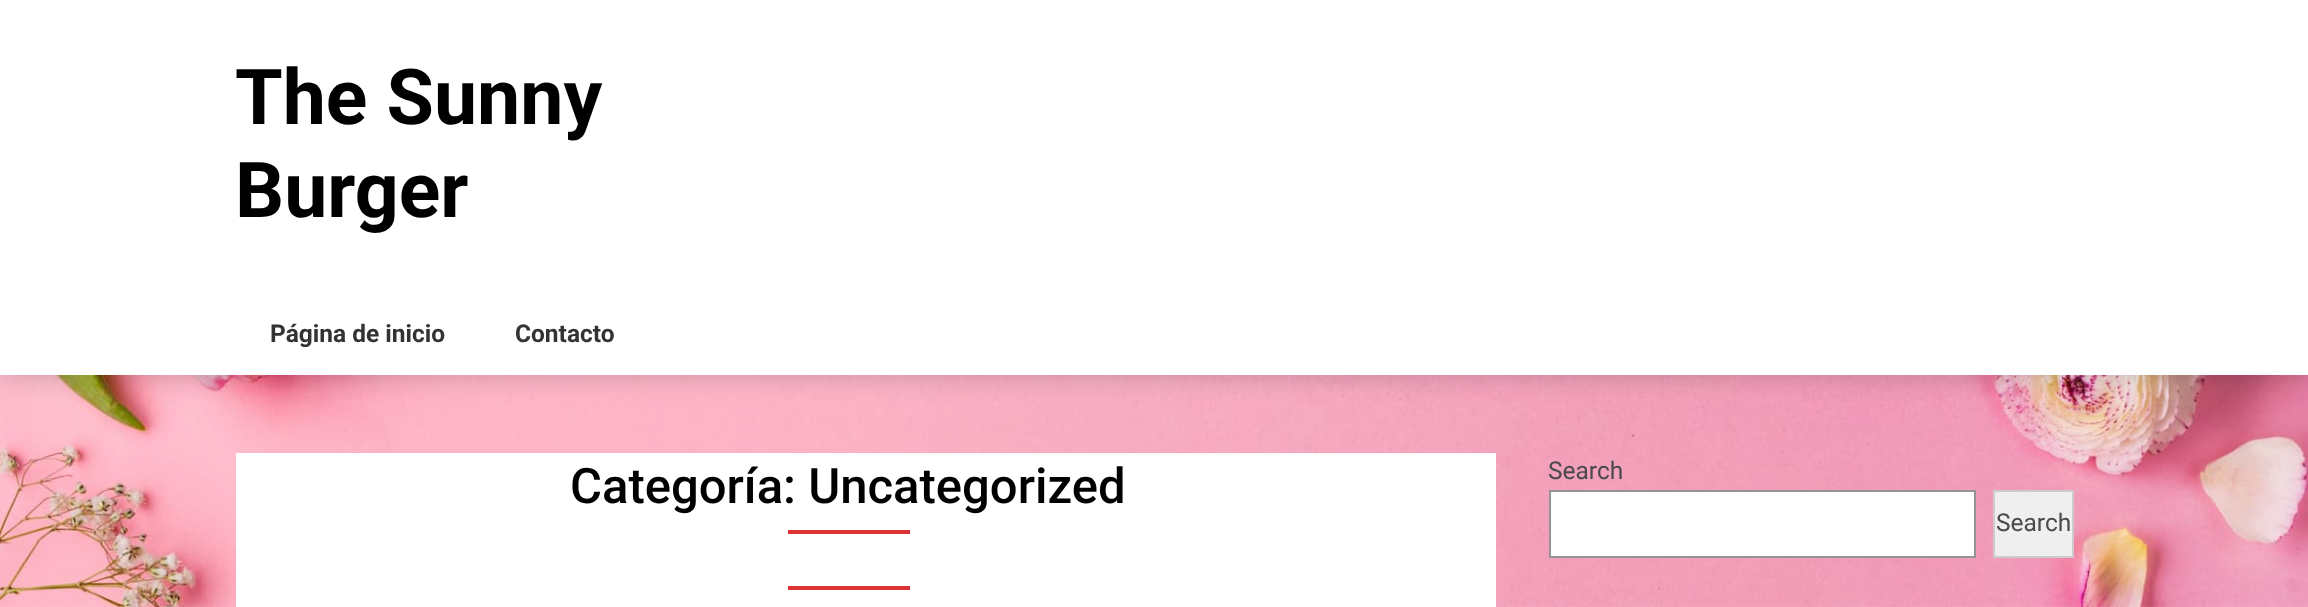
<svg xmlns="http://www.w3.org/2000/svg" width="2308" height="607">
<style>
.a{font:bold 77px Roboto;fill:#000}
.b{font:bold 24.5px Roboto;fill:#333}
.c{font:500 49px Roboto;fill:#000}
.d{font:24.5px Roboto;fill:#4a4a4a}
</style>
<rect width="100%" height="100%" fill="#fff"/>
<image href="1.png" x="0" y="375" width="2308" height="232"/>
<path fill="#00000033" filter="blur(13px)" d="M0 0h2308v375H0z"/>
<path fill="#fff" d="M0 0h2308v375H0z"/>
<path fill="#fff" d="M236 453h1260v154H236z"/>
<path fill="#d33" d="M788 530h122v4H788z"/>
<path fill="#d33" d="M788 586h122v4H788z"/>
<path fill="#fff" stroke="#949494" stroke-width="2" d="M1550 491h425v66H1550z"/>
<path fill="#efefef" stroke="#ccc" stroke-width="2" d="M1994 491h79v66H1994z"/>
<text class="a" x="235" y="124">The Sunny</text>
<text class="a" x="235" y="217">Burger</text>
<text class="b" x="270" y="342">Página de inicio</text>
<text class="b" x="515" y="342">Contacto</text>
<text class="c" x="570" y="503">Categoría: Uncategorized</text>
<text class="d" x="1548" y="479">Search</text>
<text class="d" x="1996" y="531">Search</text>
</svg>
